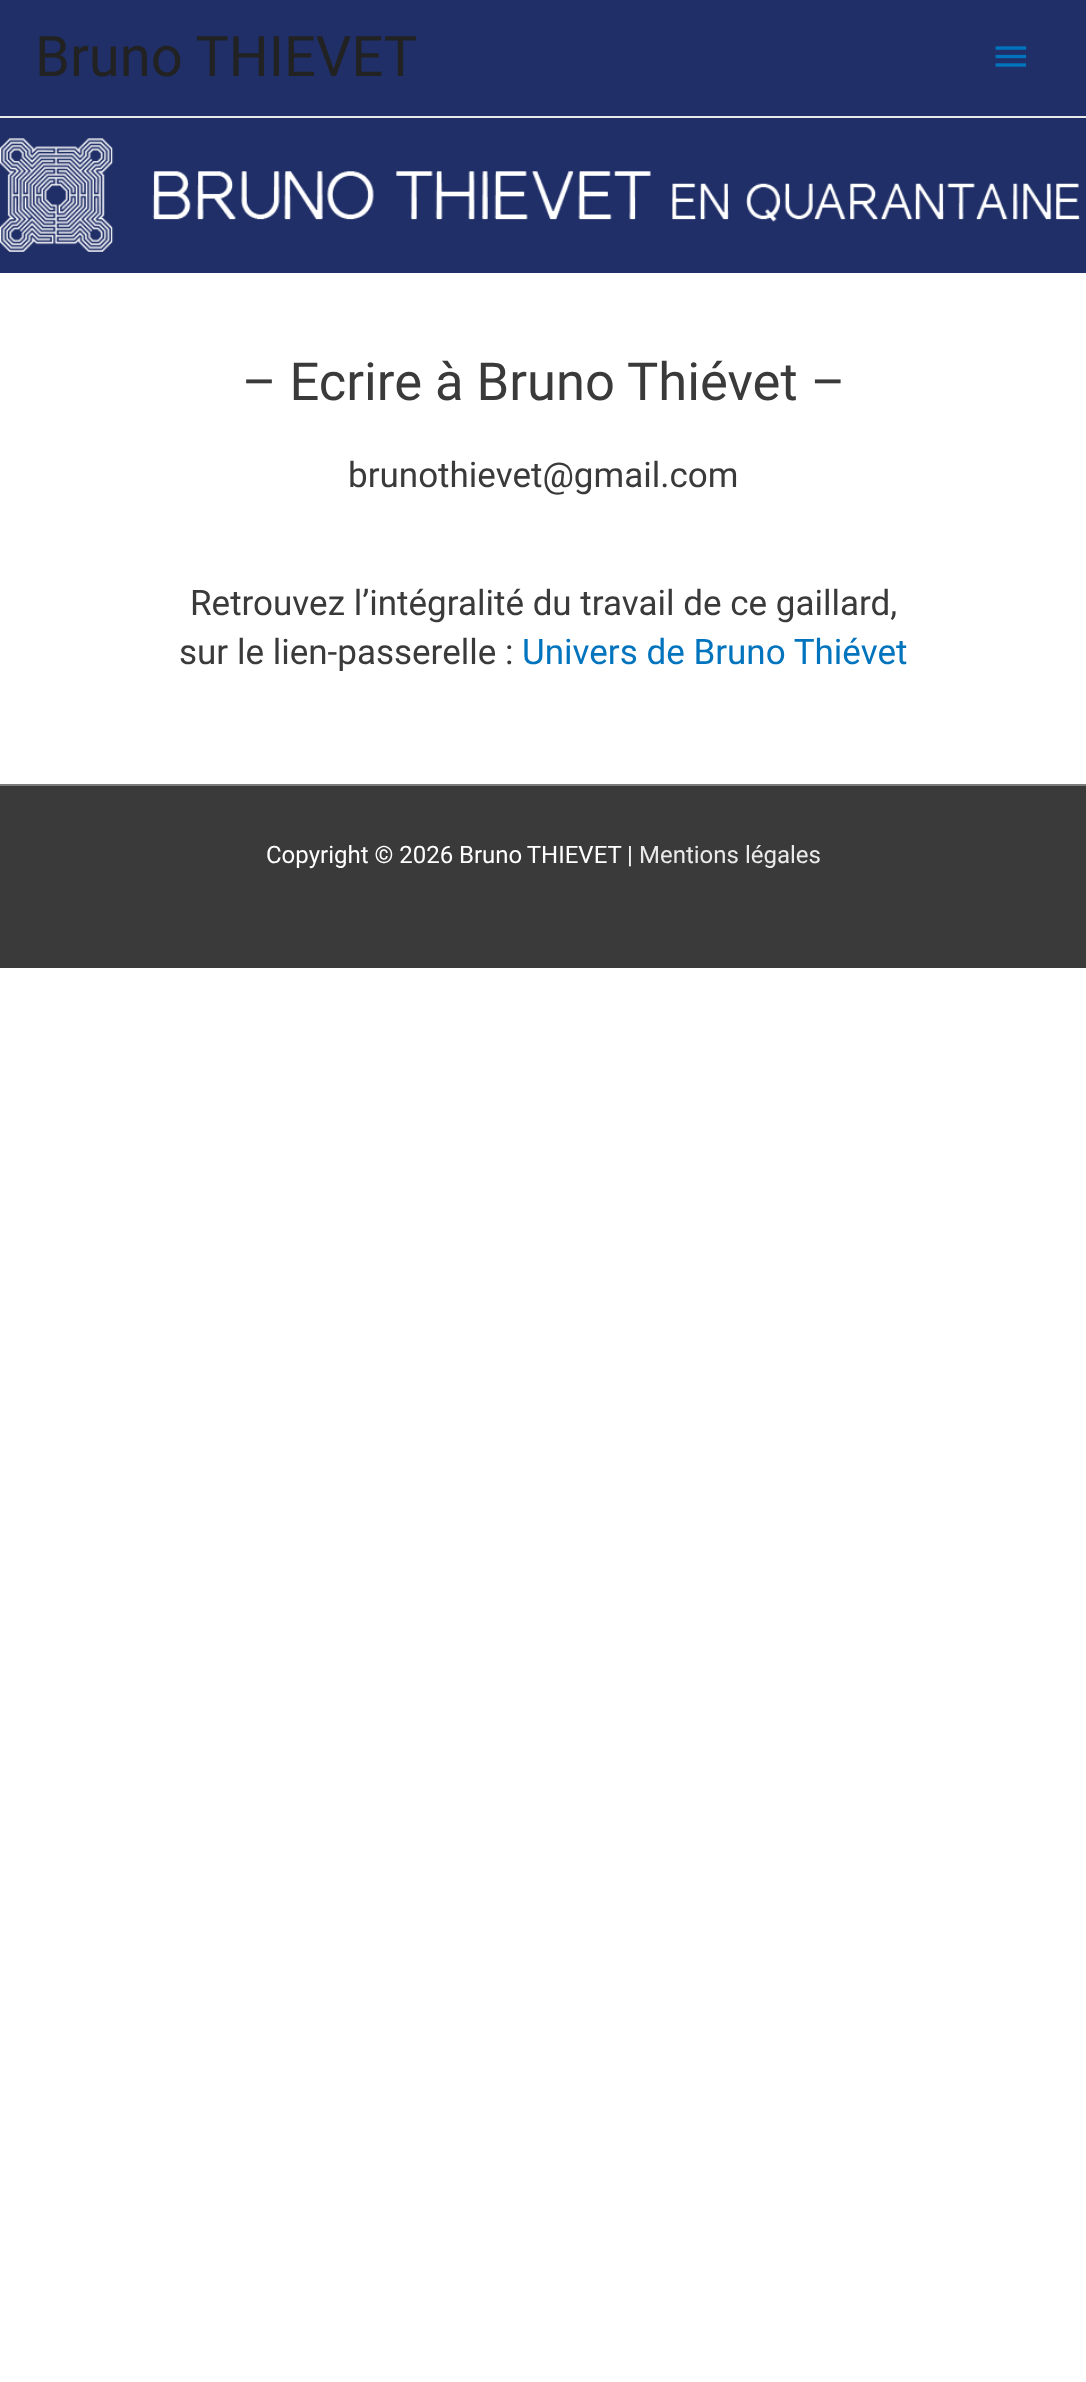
<svg xmlns="http://www.w3.org/2000/svg" width="1086" height="2382">
<style>
.a{font:56px Roboto;fill:#222}
.b{font:52.5px Roboto;fill:#3a3a3a}
.c{font:35px Roboto;fill:#3a3a3a}
.d{font:35px Roboto;fill:#0274be}
.e{font:24px Roboto;fill:#fff}
.f{font:24px Roboto;fill:#eaeaea}
</style>
<rect width="100%" height="100%" fill="#fff"/>
<path fill="#202f67" d="M0 0h1086v116H0z"/>
<path fill="#eaeaea" d="M0 116h1086v2H0z"/>
<image href="1.png" x="995" y="46" width="32" height="21"/>
<path fill="#202f67" d="M0 118h1086v155H0z"/>
<image href="2.png" x="0" y="138" width="1080" height="114"/>
<path fill="#7a7a7a" d="M0 784h1086v2H0z"/>
<path fill="#3a3a3a" d="M0 786h1086v182H0z"/>
<text class="a" x="35" y="76">Bruno THIEVET</text>
<text class="b" x="242" y="400">– Ecrire à Bruno Thiévet –</text>
<text class="c" x="348" y="487">brunothievet@gmail.com</text>
<text class="c" x="190" y="615">Retrouvez l’intégralité du travail de ce gaillard,</text>
<text class="c" x="179" y="664">sur le lien-passerelle :</text>
<text class="d" x="522" y="664">Univers de Bruno Thiévet</text>
<text class="e" x="266" y="863">Copyright © 2026</text>
<text class="e" x="459" y="863" word-spacing="-1">Bruno THIEVET</text>
<text class="e" x="627" y="863">|</text>
<text class="f" x="639" y="863">Mentions légales</text>
</svg>
